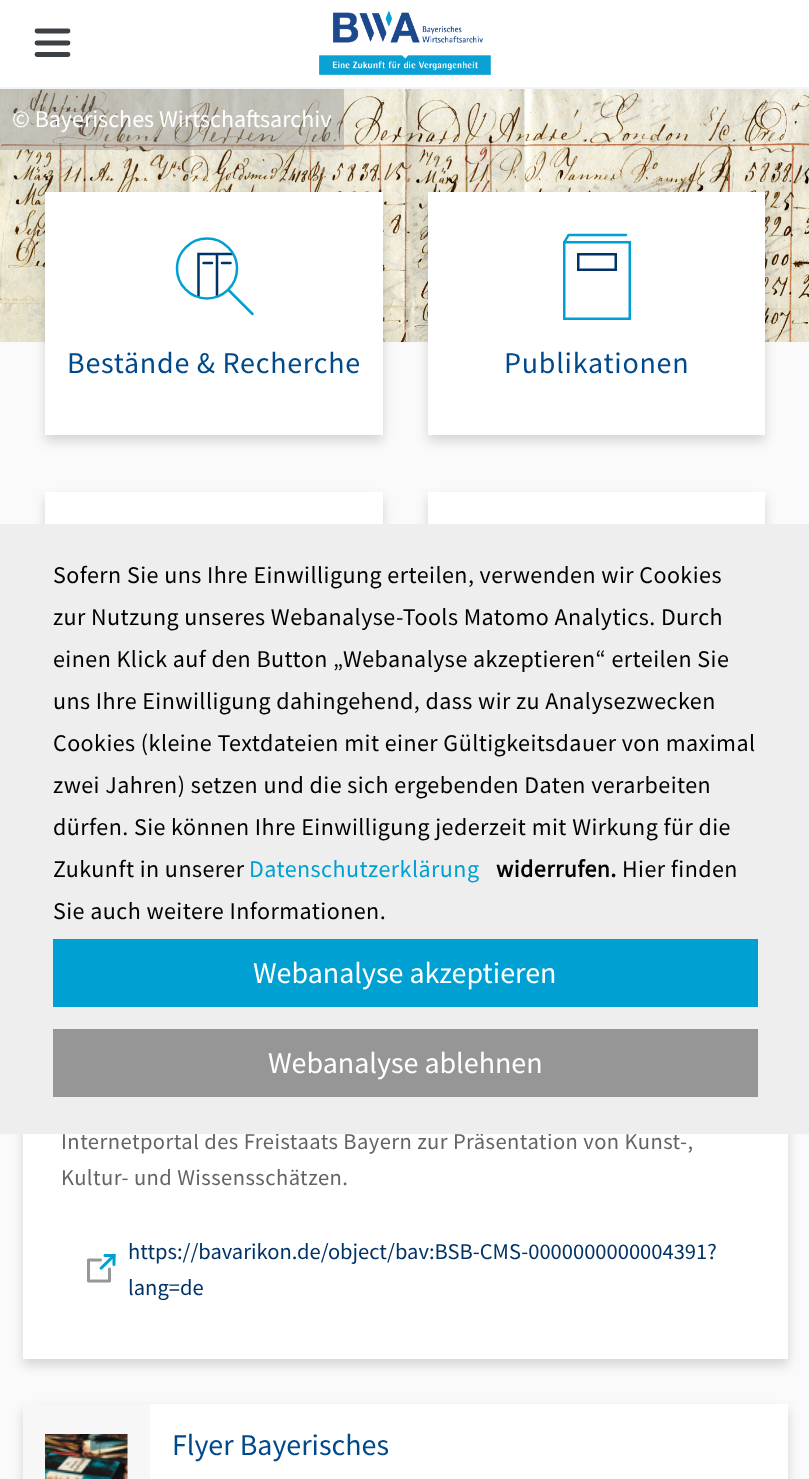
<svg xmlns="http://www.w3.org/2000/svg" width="809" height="1479">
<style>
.a{font:24px Source Sans Pro;fill:#fff}
.b{font:30px Source Sans Pro;letter-spacing:0.75px;fill:#004a8c}
.c{font:22.5px Source Sans Pro;letter-spacing:0.45px;fill:#646464}
.d{font:22.5px Source Sans Pro;fill:#036}
.e{font:30px Source Sans Pro;fill:#004a8c}
.f{font:24px Source Sans Pro;letter-spacing:0.45px;fill:#000}
.g{font:24px Source Sans Pro;letter-spacing:0.45px;fill:#00a0d2}
.h{font:bold 24px Source Sans Pro;letter-spacing:0.45px;fill:#000}
.i{font:30px Source Sans Pro;fill:#fff}
</style>
<rect width="100%" height="100%" fill="#fafafa"/>
<path fill="#fff" d="M0 0h809v87H0z"/>
<path fill="none" stroke="#3c4146" stroke-width="4.8" stroke-linecap="round" stroke-linejoin="round" d="M37 31h31m-31 12h31m-31 11.5h31"/>
<image href="1.png" x="319" y="10" width="172" height="65"/>
<path fill="#f2f4f6" d="M0 87h809v2H0z"/>
<image href="2.png" x="0" y="89" width="809" height="253"/>
<path fill="#96969673" d="M0 89h344v61H0z"/>
<path fill="#00000026" filter="blur(6px)" d="M45 198h338v243H45z"/>
<path fill="#fff" d="M45 192h338v243H45z"/>
<path fill="none" stroke="#036" stroke-width="2.5" stroke-linecap="round" d="M198.5 296.5v-42.5h18.5v42.5m-13.5-33.5h8.5m10 0h8.5m-13.5-9h15.5"/>
<circle fill="none" stroke="#00a0d2" stroke-width="2.5" cx="207" cy="268.5" r="30"/>
<path fill="none" stroke="#00a0d2" stroke-width="2.5" stroke-linecap="round" d="M228.5 290l24 24"/>
<path fill="#00000026" filter="blur(6px)" d="M428 198h337v243H428z"/>
<path fill="#fff" d="M428 192h337v243H428z"/>
<path fill="none" stroke="#00a0d2" stroke-width="2.5" d="M564.25 242.25h65.5v76.5H564.25z"/>
<path fill="none" stroke="#00a0d2" stroke-width="2.5" stroke-linecap="round" stroke-linejoin="round" d="M564.5 242l4-7h57.5"/>
<path fill="none" stroke="#036" stroke-width="2.5" d="M578.25 254.25h37.5v15.5H578.25z"/>
<path fill="#00000026" filter="blur(6px)" d="M45 498h338v285H45z"/>
<path fill="#fff" d="M45 492h338v32H45z"/>
<path fill="#00000026" filter="blur(6px)" d="M428 498h337v285H428z"/>
<path fill="#fff" d="M428 492h337v32H428z"/>
<path fill="#00000026" filter="blur(6px)" d="M23 890h765v475H23z"/>
<path fill="#fff" d="M23 1134h765v225H23z"/>
<image href="3.png" x="87" y="1254" width="29" height="29"/>
<path fill="#00000026" filter="blur(6px)" d="M23 1410h765v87H23z"/>
<path fill="#fff" d="M150 1404h638v75H150z"/>
<path fill="#f7f7f7" d="M23 1404h127v75H23z"/>
<image href="4.png" x="45" y="1434" width="83" height="45"/>
<text class="a" x="12" y="127">© Bayerisches Wirtschaftsarchiv</text>
<text class="b" x="67" y="373">Bestände &amp; Recherche</text>
<text class="b" x="504" y="373">Publikationen</text>
<text class="c" x="61" y="1149">Internetportal des Freistaats Bayern zur Präsentation von Kunst-,</text>
<text class="c" x="61" y="1185">Kultur- und Wissensschätzen.</text>
<text class="d" x="128" y="1259">https://bavarikon.de/object/bav:BSB-CMS-0000000000004391?</text>
<text class="d" x="128" y="1295">lang=de</text>
<text class="e" x="172" y="1455">Flyer Bayerisches</text>
<path fill="#eee" d="M0 524h809v610H0z"/>
<text class="f" x="53" y="583">Sofern Sie uns Ihre Einwilligung erteilen, verwenden wir Cookies</text>
<text class="f" x="53" y="625">zur Nutzung unseres Webanalyse-Tools Matomo Analytics. Durch</text>
<text class="f" x="53" y="667">einen Klick auf den Button „Webanalyse akzeptieren“ erteilen Sie</text>
<text class="f" x="53" y="709">uns Ihre Einwilligung dahingehend, dass wir zu Analysezwecken</text>
<text class="f" x="53" y="751">Cookies (kleine Textdateien mit einer Gültigkeitsdauer von maximal</text>
<text class="f" x="53" y="793">zwei Jahren) setzen und die sich ergebenden Daten verarbeiten</text>
<text class="f" x="53" y="835">dürfen. Sie können Ihre Einwilligung jederzeit mit Wirkung für die</text>
<text class="f" x="53" y="877">Zukunft in unserer</text>
<text class="g" x="249" y="877">Datenschutzerklärung</text>
<text class="h" x="496" y="877">widerrufen.</text>
<text class="f" x="622" y="877">Hier finden</text>
<text class="f" x="53" y="919">Sie auch weitere Informationen.</text>
<path fill="#00a0d2" d="M53 939h705v68H53z"/>
<text class="i" x="253" y="983">Webanalyse akzeptieren</text>
<path fill="#969696" d="M53 1029h705v68H53z"/>
<text class="i" x="268" y="1073">Webanalyse ablehnen</text>
</svg>
